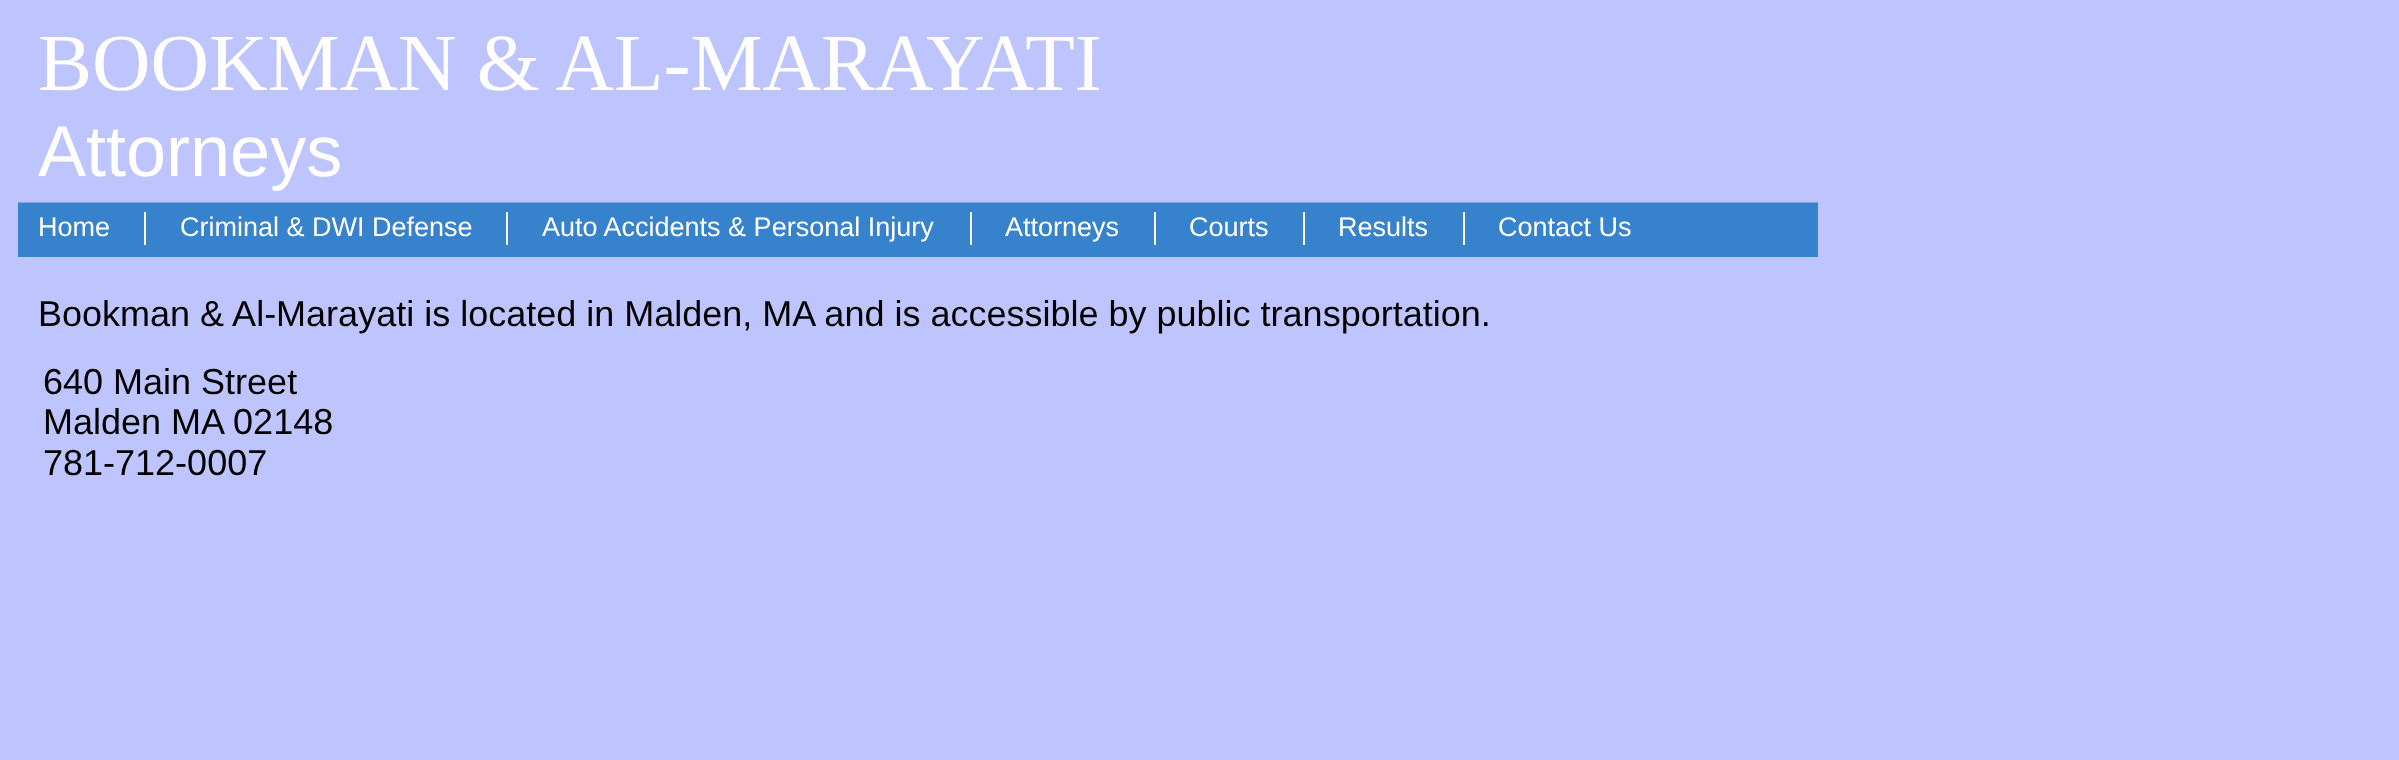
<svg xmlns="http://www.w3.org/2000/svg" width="2399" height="760">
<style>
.a{font:81px Liberation Serif;fill:#fff}
.b{font:72px Liberation Sans;fill:#fff}
.c{font:27px Liberation Sans;fill:#fff}
.d{font:36px Liberation Sans;fill:#000}
</style>
<rect width="100%" height="100%" fill="#bec4fd"/>
<path fill="#3782cc" d="M18 203h1800v54H18z"/>
<path fill="#7aa3e4" d="M18 202h1800v1H18z"/>
<path fill="#fff" d="M144 212h2v33H144z"/>
<path fill="#fff" d="M506 212h2v33H506z"/>
<path fill="#fff" d="M970 212h2v33H970z"/>
<path fill="#fff" d="M1154 212h2v33H1154z"/>
<path fill="#fff" d="M1303 212h2v33H1303z"/>
<path fill="#fff" d="M1463 212h2v33H1463z"/>
<text class="a" x="38" y="90">BOOKMAN &amp; AL-MARAYATI</text>
<text class="b" x="38" y="176">Attorneys</text>
<text class="c" x="38" y="236">Home</text>
<text class="c" x="180" y="236">Criminal &amp; DWI Defense</text>
<text class="c" x="542" y="236">Auto Accidents &amp; Personal Injury</text>
<text class="c" x="1005" y="236">Attorneys</text>
<text class="c" x="1189" y="236">Courts</text>
<text class="c" x="1338" y="236">Results</text>
<text class="c" x="1498" y="236">Contact Us</text>
<text class="d" x="38" y="326">Bookman &amp; Al-Marayati is located in Malden, MA and is accessible by public transportation.</text>
<text class="d" x="43" y="394">640 Main Street</text>
<text class="d" x="43" y="434">Malden MA 02148</text>
<text class="d" x="43" y="475">781-712-0007</text>
</svg>
